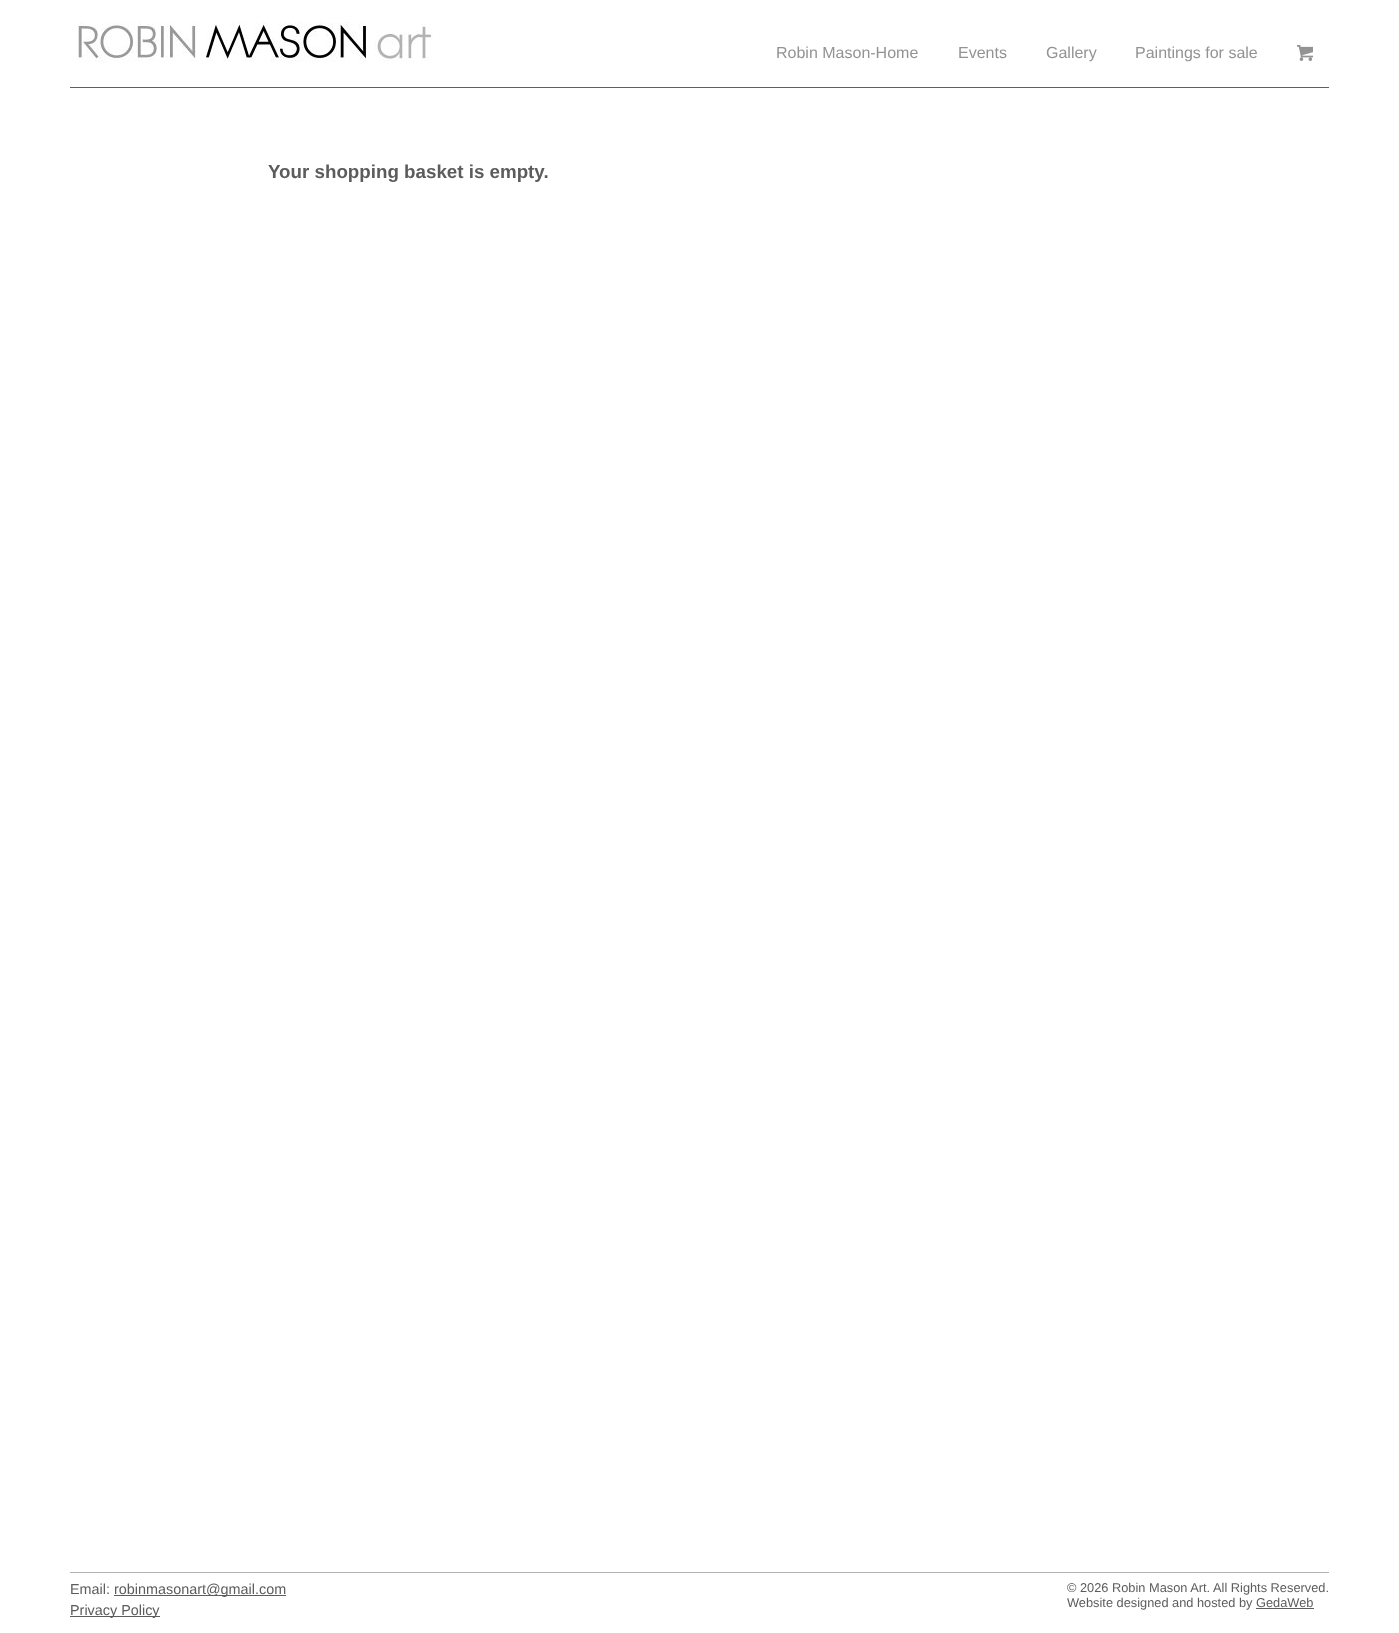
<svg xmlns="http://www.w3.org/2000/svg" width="1399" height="1633">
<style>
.a{font:16px Liberation Sans;fill:#939393}
.b{font:bold 18.75px Liberation Sans;fill:#5d5c5c}
.c{font:14.4px Liberation Sans;fill:#5d5c5c}
.d{font:12.8px Liberation Sans;fill:#5d5c5c}
</style>
<rect width="100%" height="100%" fill="#fff"/>
<path fill="#625e5e" d="M70 87h1259v1H70z"/>
<image href="1.png" x="78" y="22" width="355" height="40"/>
<image href="2.png" x="1297" y="45" width="16" height="16"/>
<path fill="#b1b1b1" d="M70 1572h1259v1H70z"/>
<path fill="#5d5c5c" d="M114 1595h172v1H114z"/>
<path fill="#5d5c5c" d="M70 1616h90v1H70z"/>
<path fill="#5d5c5c" d="M1256 1608h58v1H1256z"/>
<text class="a" x="776" y="58">Robin Mason-Home</text>
<text class="a" x="958" y="58">Events</text>
<text class="a" x="1046" y="58">Gallery</text>
<text class="a" x="1135" y="58">Paintings for sale</text>
<text class="b" x="268" y="178">Your shopping basket is empty.</text>
<text class="c" x="70" y="1594">Email:</text>
<text class="c" x="114" y="1594">robinmasonart@gmail.com</text>
<text class="c" x="70" y="1615">Privacy Policy</text>
<text class="d" x="1067" y="1592">© 2026 Robin Mason Art. All Rights Reserved.</text>
<text class="d" x="1067" y="1607">Website designed and hosted by GedaWeb</text>
</svg>
